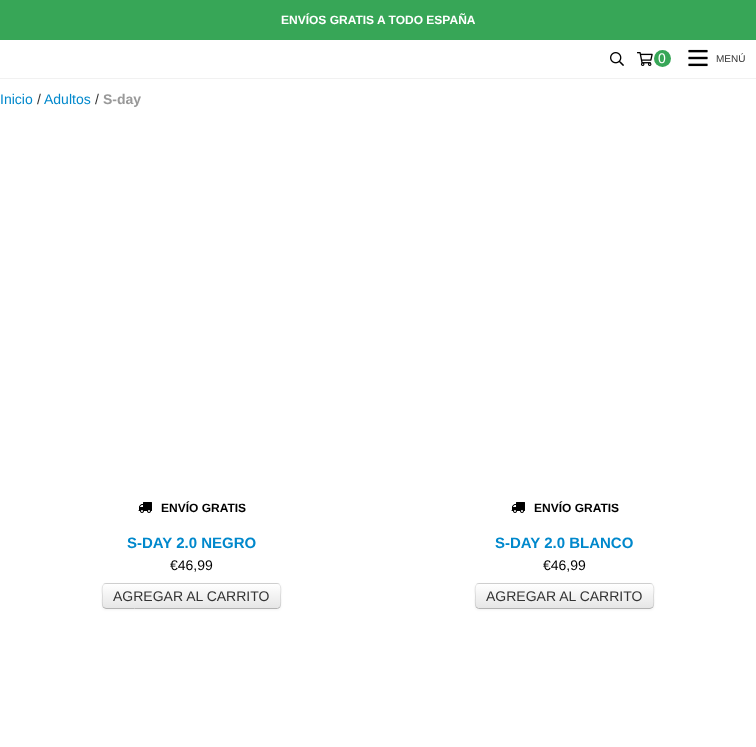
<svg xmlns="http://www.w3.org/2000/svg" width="756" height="747">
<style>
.a{font:bold 12px Liberation Sans;fill:#fff}
.b{font:14px Liberation Sans;letter-spacing:1px;fill:#fff}
.c{font:10px Liberation Sans;fill:#333}
.d{font:14px Liberation Sans;fill:#08c}
.e{font:14px Liberation Sans;fill:#333}
.f{font:bold 14px Liberation Sans;fill:#999}
.g{font:bold 12px Liberation Sans;fill:#000}
.h{font:bold 15px Liberation Sans;fill:#08c}
.i{font:14px Liberation Sans;fill:#000}
</style>
<defs>
<clipPath id="clip1"><rect x="102" y="583" width="179" height="26" rx="4"/></clipPath>
<linearGradient id="g1" gradientUnits="userSpaceOnUse" x1="192" y1="560" x2="192" y2="584"><stop offset="0" stop-color="#fff"/><stop offset="1" stop-color="#e6e6e6"/></linearGradient>
<linearGradient id="g2" gradientUnits="userSpaceOnUse" x1="192" y1="584" x2="192" y2="608"><stop offset="0" stop-color="#fff"/><stop offset="1" stop-color="#e6e6e6"/></linearGradient>
<linearGradient id="g3" gradientUnits="userSpaceOnUse" x1="192" y1="608" x2="192" y2="632"><stop offset="0" stop-color="#fff"/><stop offset="1" stop-color="#e6e6e6"/></linearGradient>
<clipPath id="clip2"><rect x="475" y="583" width="179" height="26" rx="4"/></clipPath>
<linearGradient id="g4" gradientUnits="userSpaceOnUse" x1="565" y1="560" x2="565" y2="584"><stop offset="0" stop-color="#fff"/><stop offset="1" stop-color="#e6e6e6"/></linearGradient>
<linearGradient id="g5" gradientUnits="userSpaceOnUse" x1="565" y1="584" x2="565" y2="608"><stop offset="0" stop-color="#fff"/><stop offset="1" stop-color="#e6e6e6"/></linearGradient>
<linearGradient id="g6" gradientUnits="userSpaceOnUse" x1="565" y1="608" x2="565" y2="632"><stop offset="0" stop-color="#fff"/><stop offset="1" stop-color="#e6e6e6"/></linearGradient>
</defs>
<rect width="100%" height="100%" fill="#fff"/>
<path fill="#37a657" d="M0 0h756v40H0z"/>
<path fill="#f1f1f1" d="M0 78h756v1H0z"/>
<image href="1.png" x="610" y="52" width="14" height="14"/>
<image href="2.png" x="637" y="52" width="16" height="14"/>
<circle fill="#37a657" cx="662.5" cy="58.5" r="8.5"/>
<image href="3.png" x="688" y="49" width="20" height="18"/>
<image href="4.png" x="138" y="502" width="14" height="11"/>
<rect fill="#0000000d" filter="blur(1px)" x="102" y="584" width="179" height="26" rx="4"/>
<g clip-path="url(#clip1)">
<path fill="url(#g1)" d="M102 583h179v1H102z"/>
<path fill="url(#g2)" d="M102 584h179v24H102z"/>
<path fill="url(#g3)" d="M102 608h179v1H102z"/>
</g>
<path fill="none" stroke="#b3b3b3" d="M279.5 607.5l-2 1h-143h-28.5l-2.5-1"/>
<path fill="none" stroke="#0000001a" d="M103.5 607.5c-2-2-1-9-1-11.5c0-2.5-2-12.5 3.5-12.5h171c5.5 0 3.5 10 3.5 12.5c0 2.5 1 9.5-1 11.5"/>
<image href="4.png" x="511" y="502" width="14" height="11"/>
<rect fill="#0000000d" filter="blur(1px)" x="475" y="584" width="179" height="26" rx="4"/>
<g clip-path="url(#clip2)">
<path fill="url(#g4)" d="M475 583h179v1H475z"/>
<path fill="url(#g5)" d="M475 584h179v24H475z"/>
<path fill="url(#g6)" d="M475 608h179v1H475z"/>
</g>
<path fill="none" stroke="#b3b3b3" d="M652.5 607.5l-2.5 1h-171.5l-2-1"/>
<path fill="none" stroke="#0000001a" d="M476.5 607.5c-2-2-1-9-1-11.5c0-2.5-2-12.5 3.5-12.5h171c5.5 0 3.5 10 3.5 12.5c0 2.5 1 9.5-1 11.5"/>
<text class="a" x="281" y="24">ENVÍOS GRATIS A TODO ESPAÑA</text>
<text class="b" x="658" y="63">0</text>
<text class="c" x="716" y="62">MENÚ</text>
<text class="d" x="0" y="104">Inicio</text>
<text class="e" x="37" y="104">/</text>
<text class="d" x="44" y="104">Adultos</text>
<text class="e" x="95" y="104">/</text>
<text class="f" x="103" y="104">S-day</text>
<text class="g" x="161" y="512">ENVÍO GRATIS</text>
<text class="h" x="127" y="548">S-DAY 2.0 NEGRO</text>
<text class="i" x="170" y="570">€46,99</text>
<text class="e" x="113" y="601">AGREGAR AL CARRITO</text>
<text class="g" x="534" y="512">ENVÍO GRATIS</text>
<text class="h" x="495" y="548">S-DAY 2.0 BLANCO</text>
<text class="i" x="543" y="570">€46,99</text>
<text class="e" x="486" y="601">AGREGAR AL CARRITO</text>
</svg>
